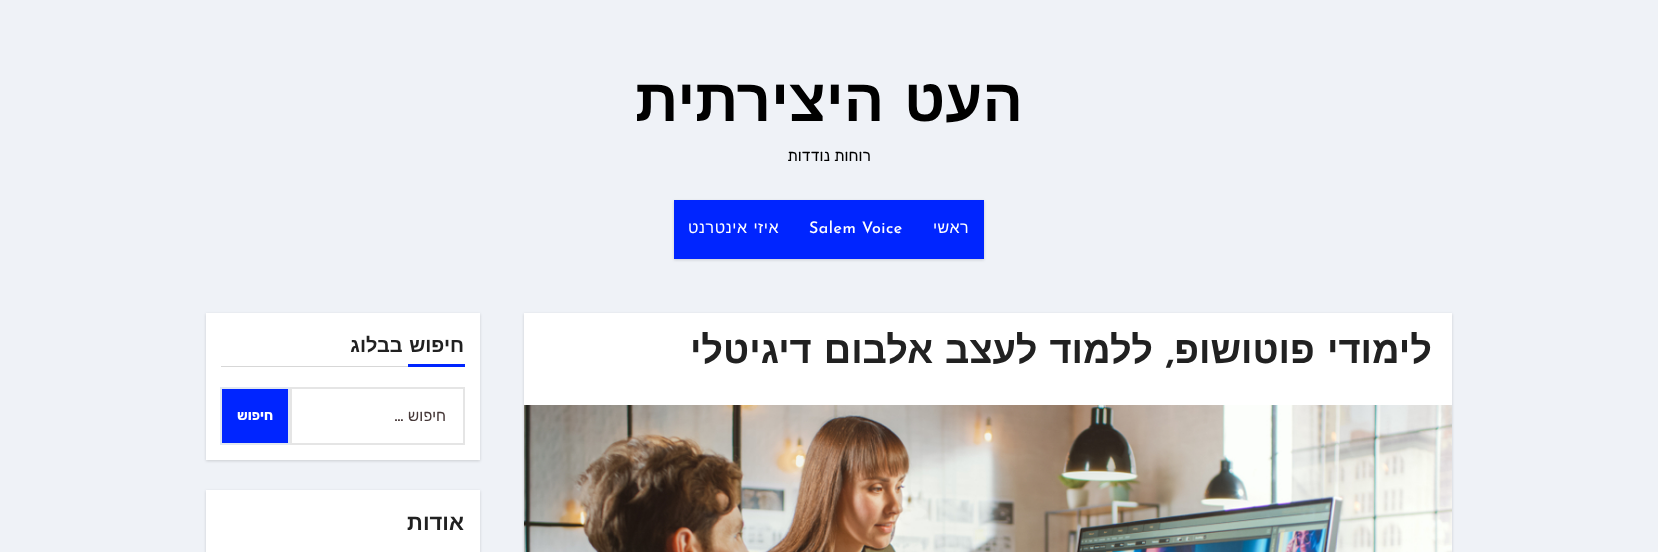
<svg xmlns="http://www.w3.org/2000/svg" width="1658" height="552">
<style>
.a{font:bold 60px Liberation Sans;direction:rtl;fill:#000}
.b{font:300 16px Rubik;direction:rtl;fill:#000}
.c{font:16px Liberation Sans;letter-spacing:0.5px;direction:rtl;fill:#fff}
.d{font:500 16px Josefin Sans;letter-spacing:0.5px;fill:#fff}
.e{font:bold 38px Liberation Sans;direction:rtl;fill:#212121}
.f{font:bold 38px Josefin Sans;direction:rtl;fill:#212121}
.g{font:bold 20px Liberation Sans;direction:rtl;fill:#212121}
.h{font:300 16px Rubik;direction:rtl;fill:#463838}
.i{font:bold 14px Rubik;direction:rtl;fill:#fff}
.j{font:bold 22px Liberation Sans;direction:rtl;fill:#212121}
</style>
<rect width="100%" height="100%" fill="#eff2f7"/>
<path fill="#00000026" filter="blur(1.5px)" d="M674 201h310v59H674z"/>
<path fill="#0025ff" d="M674 200h310v59H674z"/>
<path fill="#00000026" filter="blur(1.5px)" d="M524 314h928v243H524z"/>
<path fill="#fff" d="M524 313h928v92H524z"/>
<image href="1.png" x="524" y="405" width="928" height="147"/>
<path fill="#00000026" filter="blur(1.5px)" d="M206 314h274v147H206z"/>
<path fill="#fff" d="M206 313h274v147H206z"/>
<path fill="#d7d7d7" d="M221 366h187v1H221z"/>
<path fill="#0025ff" d="M408 364h57v3H408z"/>
<path fill="none" stroke="#e5e5e5" stroke-width="2" d="M291 388h173v56H291z"/>
<path fill="#0025ff" stroke="#e2e8f0" stroke-width="2" d="M221 388h68v56H221z"/>
<path fill="#00000026" filter="blur(1.5px)" d="M206 491h274v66H206z"/>
<path fill="#fff" d="M206 490h274v62H206z"/>
<text class="a" x="1023" y="121" word-spacing="3">העט היצירתית</text>
<text class="b" x="871" y="161">רוחות נודדות</text>
<text class="c" x="969" y="233">ראשי</text>
<text class="d" x="809" y="233">Salem Voice</text>
<text class="c" x="779" y="233" word-spacing="1">איזי אינטרנט</text>
<text class="e" x="1432" y="363" word-spacing="1.5">לימודי פוטושופ</text>
<text class="f" x="1174" y="363">,</text>
<text class="e" x="1153" y="363" word-spacing="1.5">ללמוד לעצב אלבום דיגיטלי</text>
<text class="g" x="464" y="352" word-spacing="1">חיפוש בבלוג</text>
<text class="h" x="446" y="421">חיפוש …</text>
<text class="i" x="273" y="420">חיפוש</text>
<text class="j" x="464" y="530">אודות</text>
</svg>
